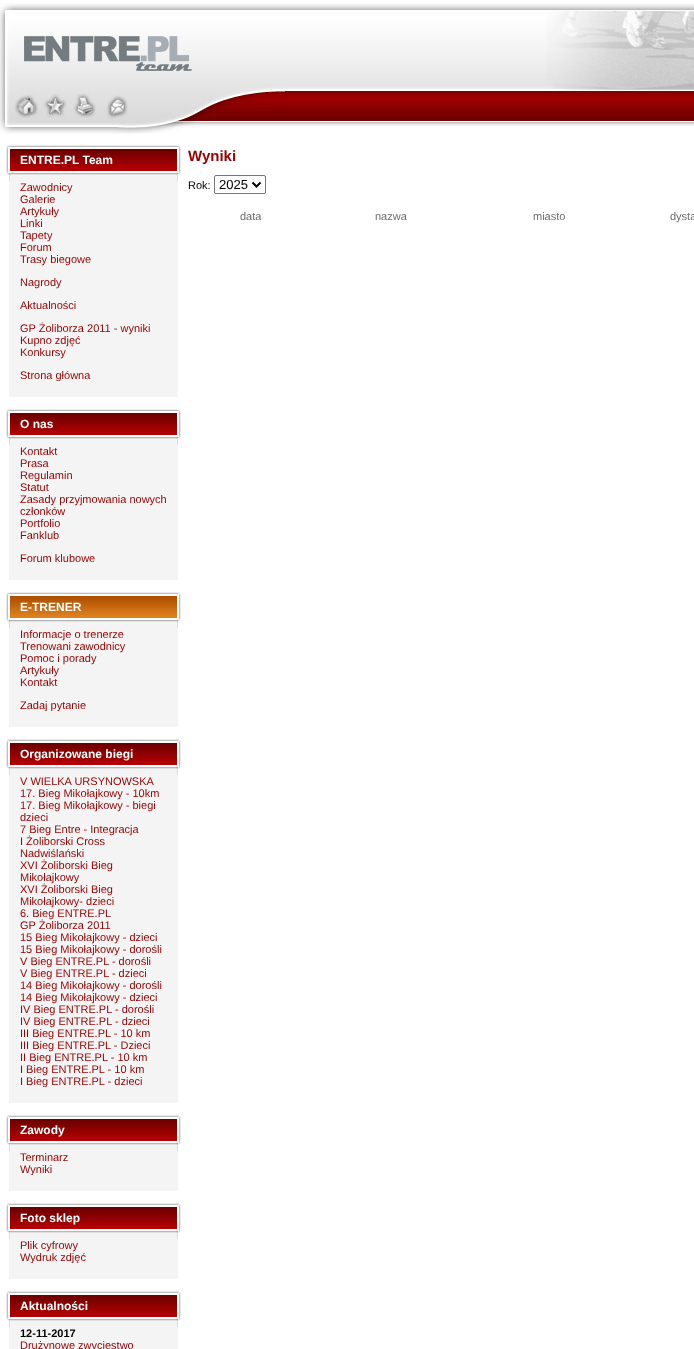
<svg xmlns="http://www.w3.org/2000/svg" width="694" height="1349">
<style>
.a{font:bold 12px Liberation Sans;fill:#fff}
.b{font:11px Liberation Sans;fill:#900}
.c{font:bold 11px Liberation Sans;fill:#000}
.d{font:bold 15px Liberation Sans;fill:#900}
.e{font:11px Liberation Sans;fill:#000}
.f{font:13px Liberation Sans;fill:#000}
.g{font:11px Liberation Sans;fill:#6c6c6c}
</style>
<rect width="100%" height="100%" fill="#fff"/>
<image href="1.png" x="0" y="3" width="287" height="131"/>
<image href="2.png" x="287" y="3" width="407" height="124"/>
<image href="3.png" x="547" y="11" width="147" height="79"/>
<image href="4.png" x="6" y="145" width="175" height="36"/>
<path fill="#f4f4f4" d="M9 181h169v200H9z"/>
<image href="4.png" x="6" y="409" width="175" height="36"/>
<path fill="#f4f4f4" d="M9 445h169v135H9z"/>
<image href="5.png" x="6" y="592" width="175" height="36"/>
<path fill="#f4f4f4" d="M9 628h169v83H9z"/>
<image href="4.png" x="6" y="739" width="175" height="36"/>
<path fill="#f4f4f4" d="M9 775h169v312H9z"/>
<image href="4.png" x="6" y="1115" width="175" height="36"/>
<path fill="#f4f4f4" d="M9 1151h169v24H9z"/>
<image href="4.png" x="6" y="1203" width="175" height="36"/>
<path fill="#f4f4f4" d="M9 1239h169v24H9z"/>
<image href="4.png" x="6" y="1291" width="175" height="36"/>
<path fill="#f4f4f4" d="M9 1327h169v22H9z"/>
<rect fill="none" stroke="#767676" x="214.5" y="175.5" width="51" height="18" rx="1.5"/>
<path fill="none" stroke="#000" stroke-width="2" d="M252.5 182.5l4 4l4-4"/>
<text class="a" x="20" y="164">ENTRE.PL Team</text>
<text class="b" x="20" y="191">Zawodnicy</text>
<text class="b" x="20" y="203">Galerie</text>
<text class="b" x="20" y="215">Artykuły</text>
<text class="b" x="20" y="227">Linki</text>
<text class="b" x="20" y="239">Tapety</text>
<text class="b" x="20" y="251">Forum</text>
<text class="b" x="20" y="263">Trasy biegowe</text>
<text class="b" x="20" y="286">Nagrody</text>
<text class="b" x="20" y="309">Aktualności</text>
<text class="b" x="20" y="332">GP Żoliborza 2011 - wyniki</text>
<text class="b" x="20" y="344">Kupno zdjęć</text>
<text class="b" x="20" y="356">Konkursy</text>
<text class="b" x="20" y="379">Strona główna</text>
<path fill="#f4f4f4" d="M9 381h169v16H9z"/>
<text class="a" x="20" y="428">O nas</text>
<text class="b" x="20" y="455">Kontakt</text>
<text class="b" x="20" y="467">Prasa</text>
<text class="b" x="20" y="479">Regulamin</text>
<text class="b" x="20" y="491">Statut</text>
<text class="b" x="20" y="503">Zasady przyjmowania nowych</text>
<text class="b" x="20" y="515">członków</text>
<text class="b" x="20" y="527">Portfolio</text>
<text class="b" x="20" y="539">Fanklub</text>
<text class="b" x="20" y="562">Forum klubowe</text>
<text class="a" x="20" y="611">E-TRENER</text>
<text class="b" x="20" y="638">Informacje o trenerze</text>
<text class="b" x="20" y="650">Trenowani zawodnicy</text>
<text class="b" x="20" y="662">Pomoc i porady</text>
<text class="b" x="20" y="674">Artykuły</text>
<text class="b" x="20" y="686">Kontakt</text>
<text class="b" x="20" y="709">Zadaj pytanie</text>
<path fill="#f4f4f4" d="M9 711h169v16H9z"/>
<text class="a" x="20" y="758">Organizowane biegi</text>
<text class="b" x="20" y="785">V WIELKA URSYNOWSKA</text>
<text class="b" x="20" y="797">17. Bieg Mikołajkowy - 10km</text>
<text class="b" x="20" y="809">17. Bieg Mikołajkowy - biegi</text>
<text class="b" x="20" y="821">dzieci</text>
<text class="b" x="20" y="833">7 Bieg Entre - Integracja</text>
<text class="b" x="20" y="845">I Żoliborski Cross</text>
<text class="b" x="20" y="857">Nadwiślański</text>
<text class="b" x="20" y="869">XVI Żoliborski Bieg</text>
<text class="b" x="20" y="881">Mikołajkowy</text>
<text class="b" x="20" y="893">XVI Żoliborski Bieg</text>
<text class="b" x="20" y="905">Mikołajkowy- dzieci</text>
<text class="b" x="20" y="917">6. Bieg ENTRE.PL</text>
<text class="b" x="20" y="929">GP Żoliborza 2011</text>
<text class="b" x="20" y="941">15 Bieg Mikołajkowy - dzieci</text>
<text class="b" x="20" y="953">15 Bieg Mikołajkowy - dorośli</text>
<text class="b" x="20" y="965">V Bieg ENTRE.PL - dorośli</text>
<text class="b" x="20" y="977">V Bieg ENTRE.PL - dzieci</text>
<text class="b" x="20" y="989">14 Bieg Mikołajkowy - dorośli</text>
<text class="b" x="20" y="1001">14 Bieg Mikołajkowy - dzieci</text>
<text class="b" x="20" y="1013">IV Bieg ENTRE.PL - dorośli</text>
<text class="b" x="20" y="1025">IV Bieg ENTRE.PL - dzieci</text>
<text class="b" x="20" y="1037">III Bieg ENTRE.PL - 10 km</text>
<text class="b" x="20" y="1049">III Bieg ENTRE.PL - Dzieci</text>
<text class="b" x="20" y="1061">II Bieg ENTRE.PL - 10 km</text>
<text class="b" x="20" y="1073">I Bieg ENTRE.PL - 10 km</text>
<text class="b" x="20" y="1085">I Bieg ENTRE.PL - dzieci</text>
<path fill="#f4f4f4" d="M9 1087h169v16H9z"/>
<text class="a" x="20" y="1134">Zawody</text>
<text class="b" x="20" y="1161">Terminarz</text>
<text class="b" x="20" y="1173">Wyniki</text>
<path fill="#f4f4f4" d="M9 1175h169v16H9z"/>
<text class="a" x="20" y="1222">Foto sklep</text>
<text class="b" x="20" y="1249">Plik cyfrowy</text>
<text class="b" x="20" y="1261">Wydruk zdjęć</text>
<path fill="#f4f4f4" d="M9 1263h169v16H9z"/>
<text class="a" x="20" y="1310">Aktualności</text>
<text class="c" x="20" y="1337">12-11-2017</text>
<text class="b" x="20" y="1349">Drużynowe zwycięstwo</text>
<text class="d" x="188" y="161">Wyniki</text>
<text class="e" x="188" y="189">Rok:</text>
<text class="f" x="219" y="189">2025</text>
<text class="g" x="240" y="220">data</text>
<text class="g" x="375" y="220">nazwa</text>
<text class="g" x="533" y="220">miasto</text>
<text class="g" x="670" y="220">dysta</text>
</svg>
